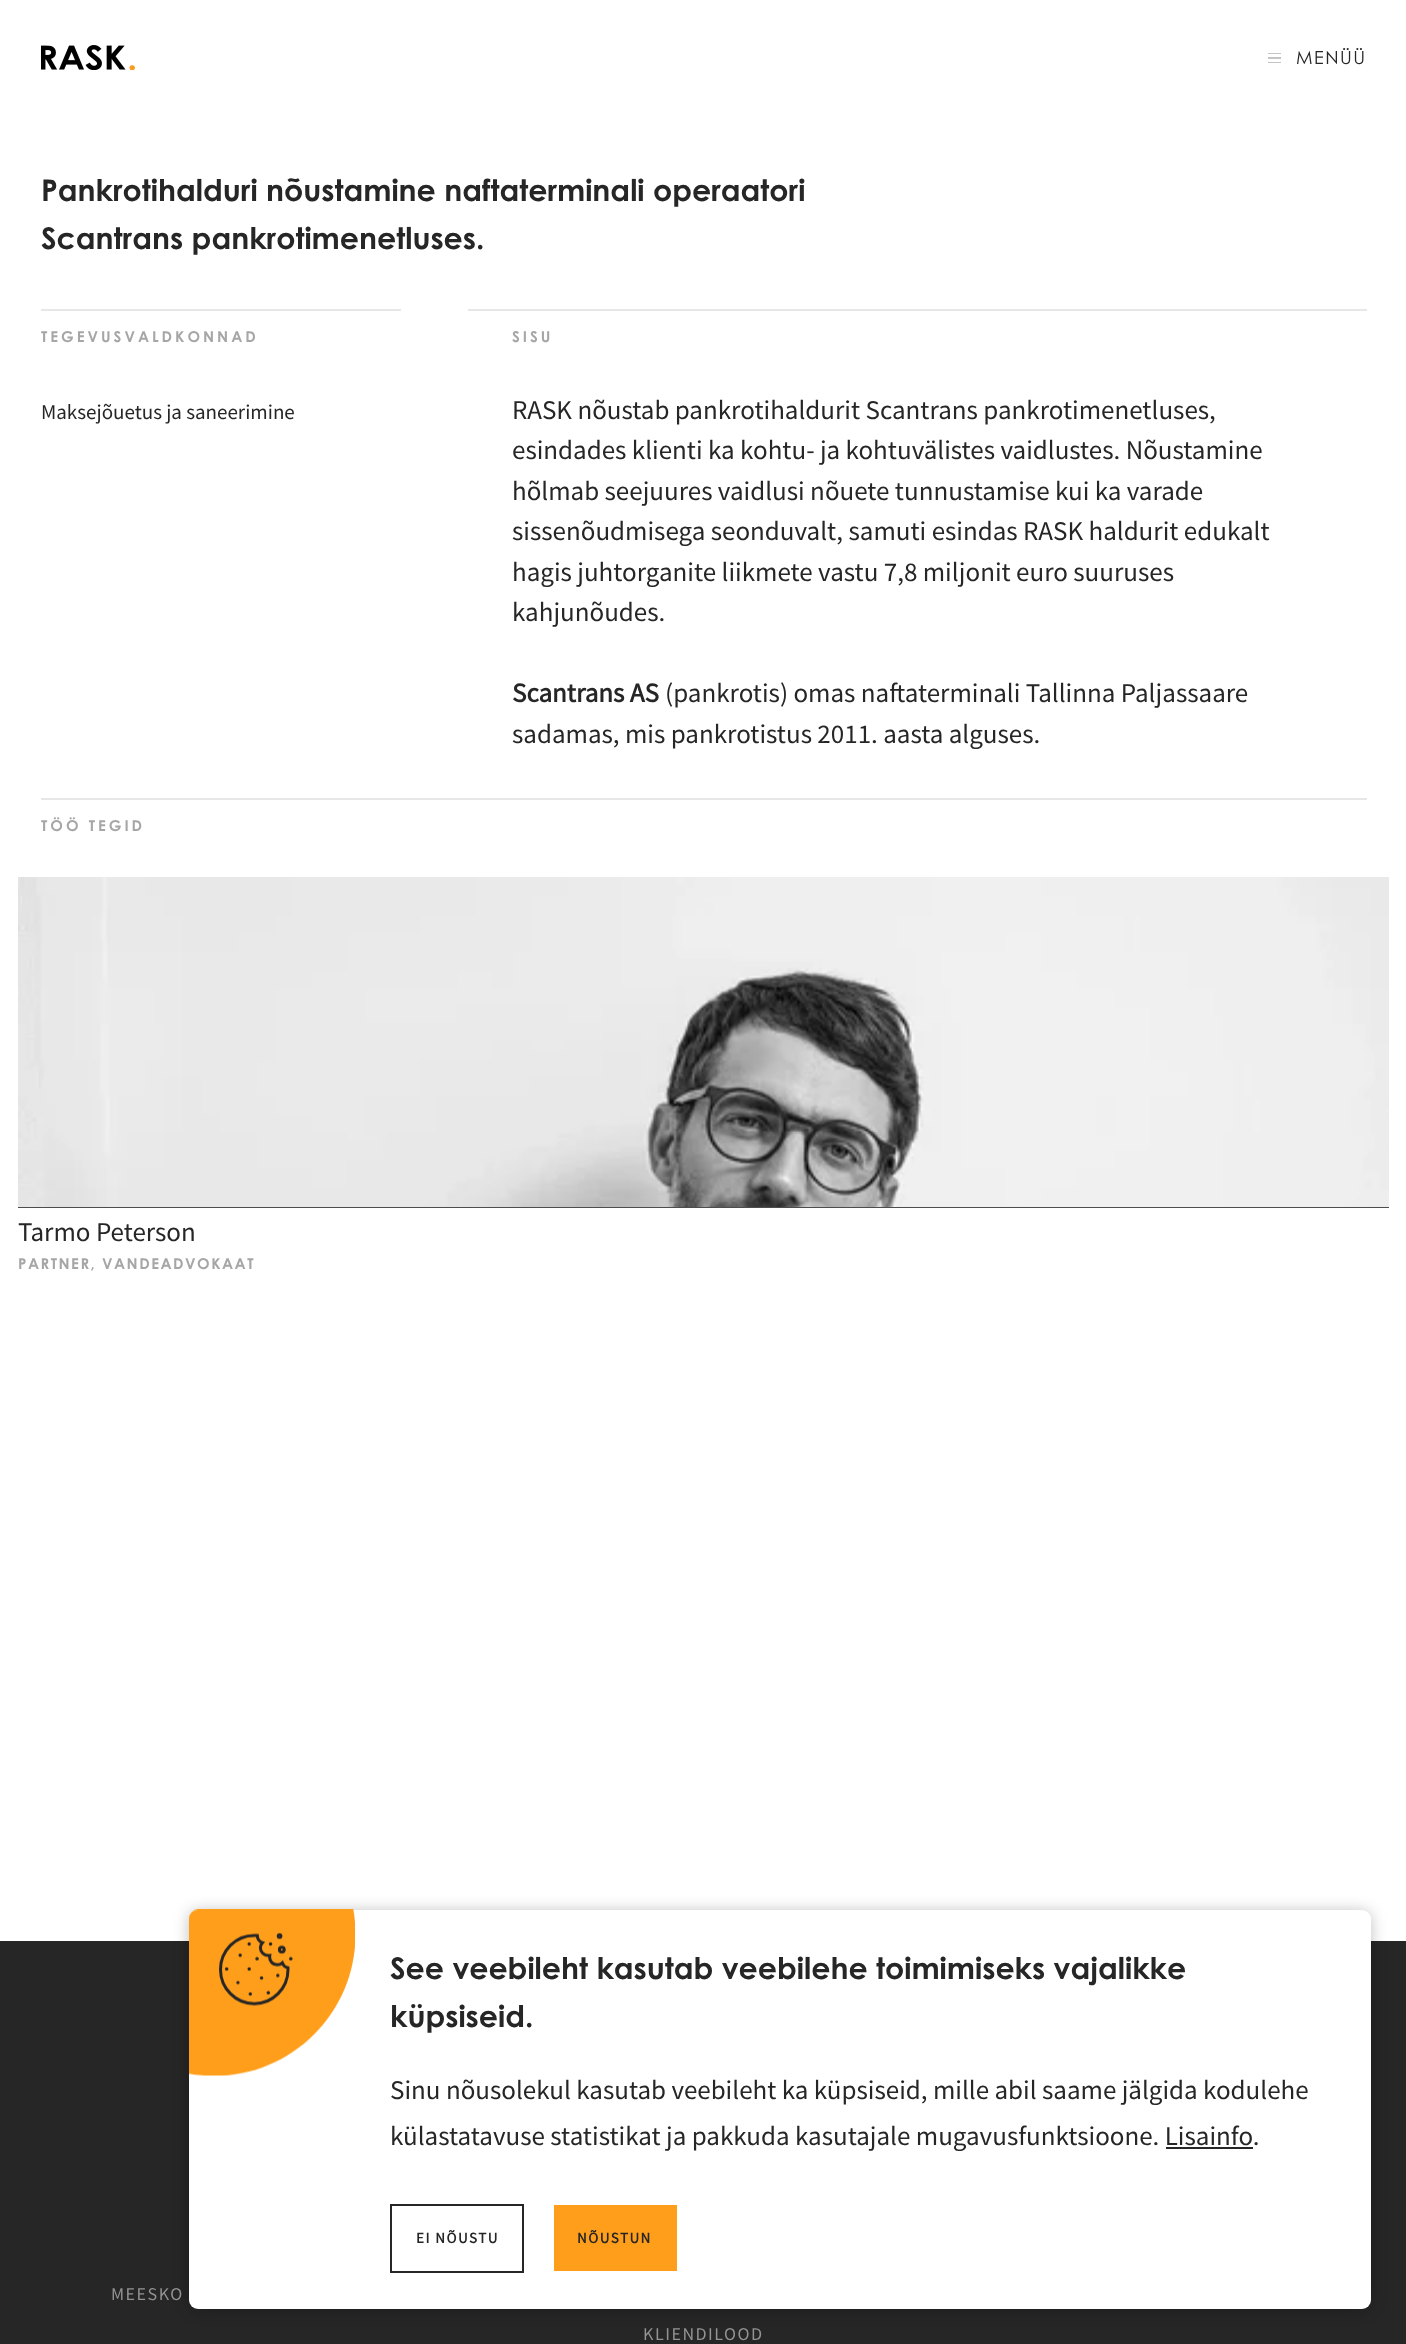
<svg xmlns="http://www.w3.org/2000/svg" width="1406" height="2344">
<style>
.a{font:18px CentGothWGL;letter-spacing:1.5px;fill:#262626}
.b{font:30px 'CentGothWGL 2';fill:#262626}
.c{font:15px 'CentGothWGL 2';letter-spacing:3px;fill:#a6a6a6}
.d{font:21px Source Sans Pro;fill:#262626}
.e{font:27px Source Sans Pro;fill:#262626}
.f{font:bold 27px Source Sans Pro;fill:#262626}
.g{font:15px 'CentGothWGL 2';letter-spacing:1.5px;fill:#a6a6a6}
.h{font:bold 15px Source Sans Pro;letter-spacing:1.5px;fill:#262626}
.i{font:18px Source Sans Pro;letter-spacing:1.5px;fill:#939393}
</style>
<rect width="100%" height="100%" fill="#fff"/>
<image href="1.png" x="41" y="45" width="94" height="25"/>
<path fill="#c4c4c4" d="M1268 62h13v1H1268z"/>
<path fill="#c4c4c4" d="M1268 57h13v2H1268z"/>
<path fill="#c4c4c4" d="M1268 53h13v1H1268z"/>
<path fill="#e7e7e7" d="M41 309h360v2H41z"/>
<path fill="#e7e7e7" d="M468 309h899v2H468z"/>
<path fill="#e7e7e7" d="M41 798h1326v2H41z"/>
<path fill="#4d4d4d" d="M18 1207h1371v1H18z"/>
<image href="2.png" x="18" y="877" width="1371" height="330"/>
<path fill="#262626" d="M0 1941h1406v403H0z"/>
<rect fill="#00000040" filter="blur(7.5px)" x="189" y="1911" width="1182" height="399" rx="9"/>
<rect fill="#fff" x="189" y="1910" width="1182" height="399" rx="9"/>
<image href="3.png" x="189" y="1909" width="167" height="167"/>
<path fill="#262626" d="M1166 2147h87v2H1166z"/>
<path fill="none" stroke="#262626" stroke-width="2" d="M391 2205h132v67H391z"/>
<path fill="#ff9e1b" d="M554 2205h123v66H554z"/>
<text class="a" x="1296" y="64">MENÜÜ</text>
<text class="b" x="41" y="201">Pankrotihalduri nõustamine naftaterminali operaatori</text>
<text class="b" x="41" y="249">Scantrans pankrotimenetluses.</text>
<text class="c" x="41" y="342">TEGEVUSVALDKONNAD</text>
<text class="d" x="41" y="419">Maksejõuetus ja saneerimine</text>
<text class="c" x="512" y="342">SISU</text>
<text class="e" x="512" y="419">RASK nõustab pankrotihaldurit Scantrans pankrotimenetluses,</text>
<text class="e" x="512" y="459">esindades klienti ka kohtu- ja kohtuvälistes vaidlustes. Nõustamine</text>
<text class="e" x="512" y="500">hõlmab seejuures vaidlusi nõuete tunnustamise kui ka varade</text>
<text class="e" x="512" y="540">sissenõudmisega seonduvalt, samuti esindas RASK haldurit edukalt</text>
<text class="e" x="512" y="581">hagis juhtorganite liikmete vastu 7,8 miljonit euro suuruses</text>
<text class="e" x="512" y="621">kahjunõudes.</text>
<text class="f" x="512" y="702">Scantrans AS</text>
<text class="e" x="665" y="702">(pankrotis) omas naftaterminali Tallinna Paljassaare</text>
<text class="e" x="512" y="743">sadamas, mis pankrotistus 2011. aasta alguses.</text>
<text class="c" x="41" y="831">TÖÖ TEGID</text>
<text class="e" x="18" y="1241">Tarmo Peterson</text>
<text class="g" x="18" y="1269">PARTNER, VANDEADVOKAAT</text>
<text class="b" x="390" y="1979">See veebileht kasutab veebilehe toimimiseks vajalikke</text>
<text class="b" x="390" y="2027">küpsiseid.</text>
<text class="e" x="390" y="2099">Sinu nõusolekul kasutab veebileht ka küpsiseid, mille abil saame jälgida kodulehe</text>
<text class="e" x="390" y="2145">külastatavuse statistikat ja pakkuda kasutajale mugavusfunktsioone. Lisainfo.</text>
<text class="h" x="416" y="2243">EI NÕUSTU</text>
<text class="h" x="577" y="2243">NÕUSTUN</text>
<text class="i" x="111" y="2300">MEESKO</text>
<text class="i" x="643" y="2340">KLIENDILOOD</text>
</svg>
